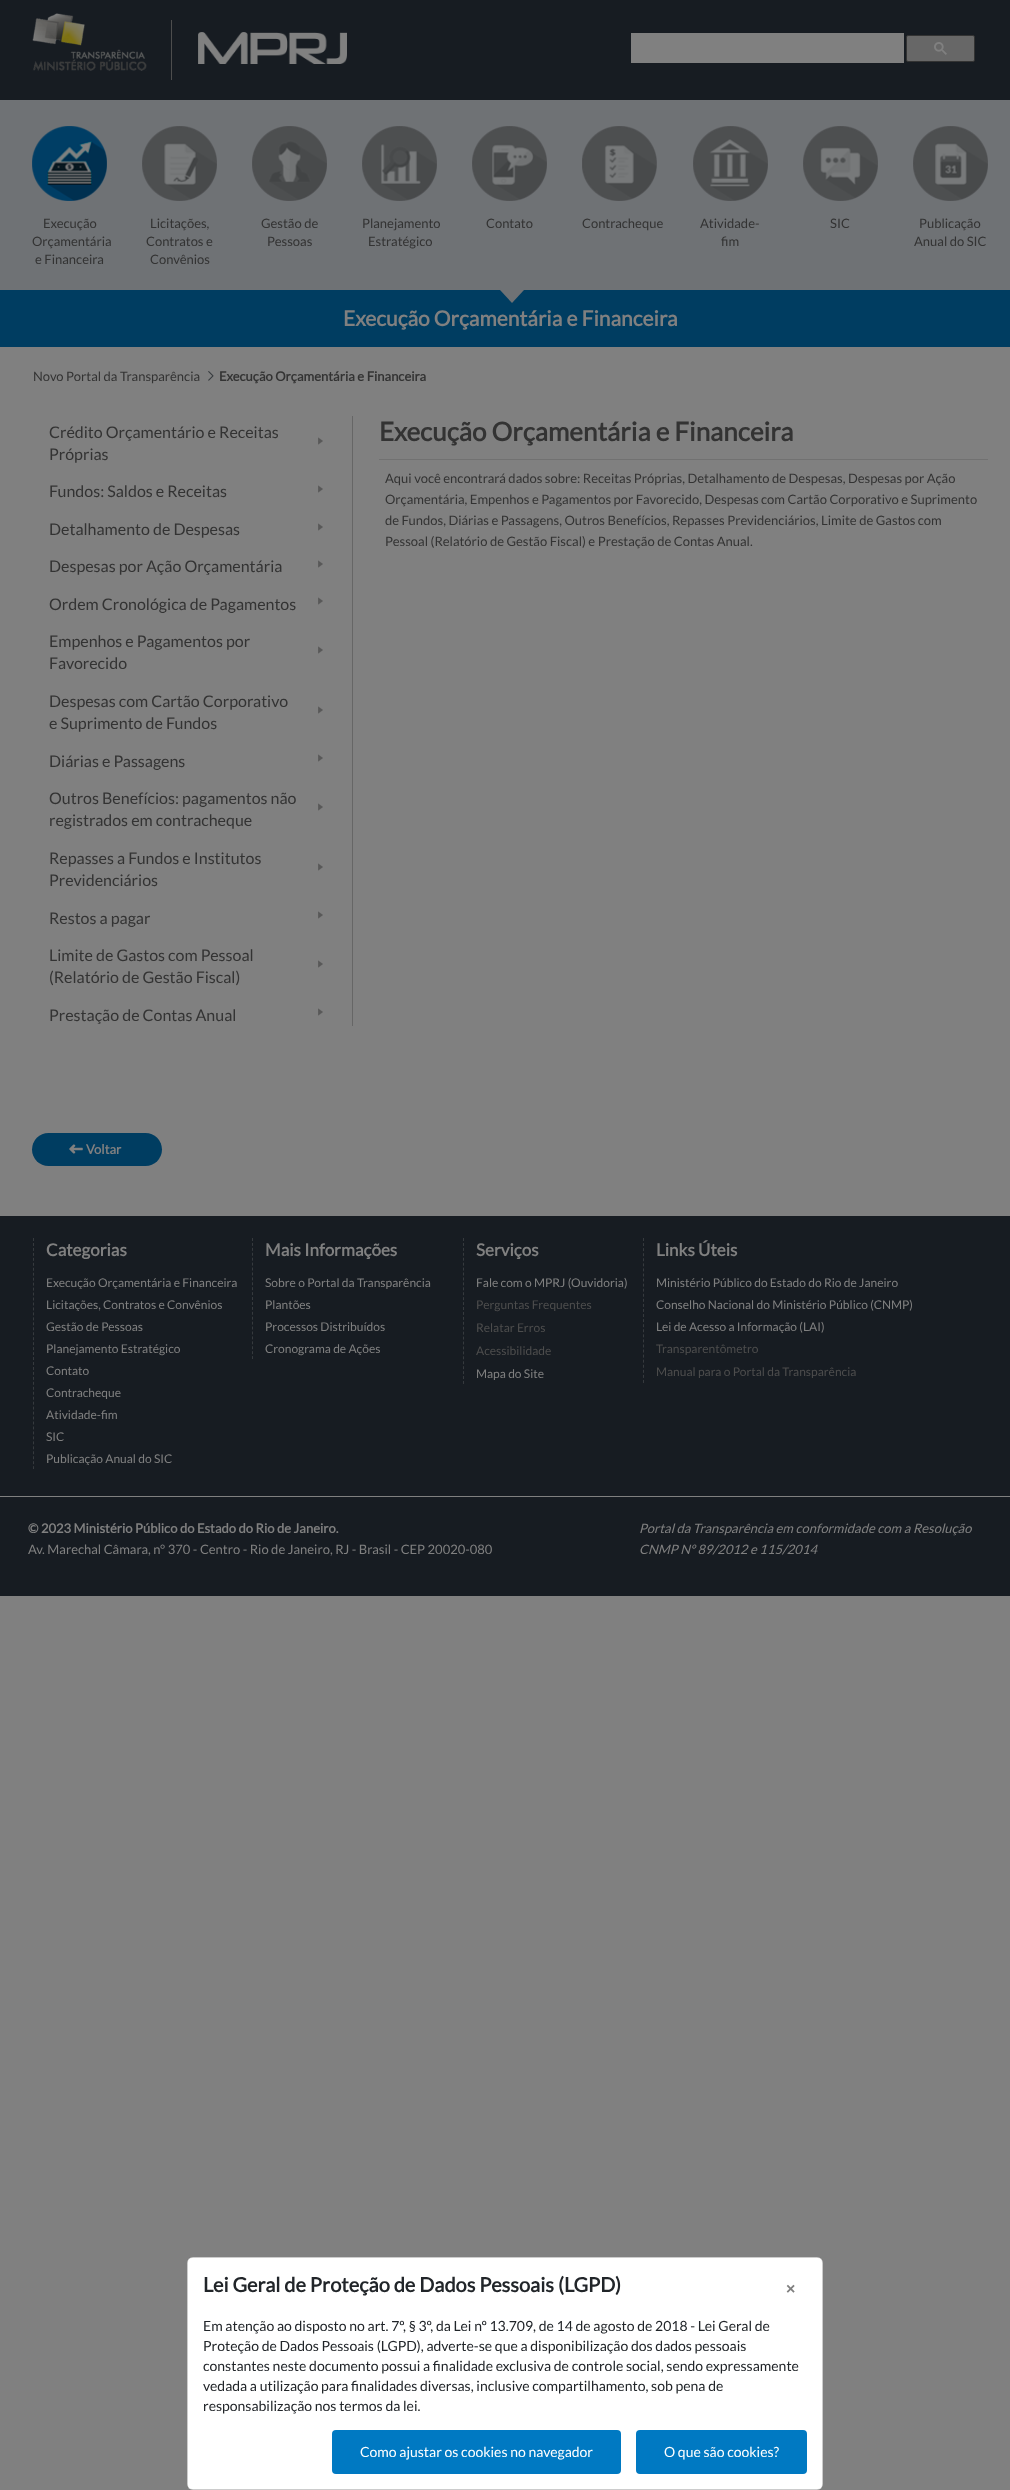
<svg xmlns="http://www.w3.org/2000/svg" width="1010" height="2490">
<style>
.a{font:13px Lato;fill:#333}
.b{font:bold 21px Lato;fill:#808080}
.c{font:bold 13px Lato;fill:#333}
.d{font:16px Lato;fill:#333}
.e{font:bold 26px Lato;fill:#333}
.f{font:bold 13px Lato;fill:#808080}
.g{font:bold 17px Lato;fill:#808080}
.h{font:12px Lato;fill:#808080}
.i{font:12px Lato;fill:#4d4d4d}
.j{font:13px Lato;fill:#808080}
.k{font:italic 13px Lato;fill:#808080}
.l{font:bold 20px Lato;fill:#212529}
.m{font:14px Lato;fill:#212529}
.n{font:14px Lato;fill:#fff}
.o{font:bold 16px Liberation Sans;fill:#808080}
</style>
<rect width="100%" height="100%" fill="#808080"/>
<path fill="#171c22" d="M0 0h1010v100H0z"/>
<image href="1.png" x="32" y="13" width="115" height="58"/>
<path fill="#4d4d4d" d="M171 20h1v60H171z"/>
<image href="2.png" x="198" y="32" width="149" height="32"/>
<path fill="#808080" d="M631 33h273v30H631z"/>
<rect fill="#676767" stroke="#333" x="906.5" y="35.5" width="68" height="26" rx="1.5"/>
<image href="3.png" x="934" y="42" width="13" height="13"/>
<path fill="#6f7275" d="M0 100h1010v190H0z"/>
<image href="4.png" x="32" y="126" width="75" height="75"/>
<image href="5.png" x="142" y="126" width="75" height="75"/>
<image href="6.png" x="252" y="126" width="75" height="75"/>
<image href="7.png" x="362" y="126" width="75" height="75"/>
<image href="8.png" x="472" y="126" width="75" height="75"/>
<image href="9.png" x="582" y="126" width="75" height="75"/>
<image href="10.png" x="693" y="126" width="75" height="75"/>
<image href="11.png" x="803" y="126" width="75" height="75"/>
<image href="12.png" x="913" y="126" width="75" height="75"/>
<path fill="#003d61" d="M0 290h1010v57H0z"/>
<path fill="#6f7275" d="M500 290h24l-12 13z"/>
<image href="13.png" x="208" y="371" width="6" height="10"/>
<path fill="#666" d="M352 416h1v610H352z"/>
<image href="14.png" x="318" y="437" width="5" height="8"/>
<image href="14.png" x="318" y="485" width="5" height="8"/>
<image href="14.png" x="318" y="523" width="5" height="8"/>
<image href="14.png" x="318" y="560" width="5" height="8"/>
<image href="14.png" x="318" y="597" width="5" height="8"/>
<image href="14.png" x="318" y="646" width="5" height="8"/>
<image href="14.png" x="318" y="706" width="5" height="8"/>
<image href="14.png" x="318" y="754" width="5" height="8"/>
<image href="14.png" x="318" y="803" width="5" height="8"/>
<image href="14.png" x="318" y="863" width="5" height="8"/>
<image href="14.png" x="318" y="911" width="5" height="8"/>
<image href="14.png" x="318" y="960" width="5" height="8"/>
<image href="14.png" x="318" y="1008" width="5" height="8"/>
<path fill="#717171" d="M379 459h609v1H379z"/>
<rect fill="#003d61" x="32" y="1133" width="130" height="33" rx="16.5"/>
<image href="15.png" x="69" y="1144" width="14" height="10"/>
<path fill="#171c22" d="M0 1216h1010v280H0z"/>
<path fill="none" stroke="#363a3e" stroke-dasharray="3 1.96" d="M33.5 1238v231"/>
<path fill="none" stroke="#363a3e" stroke-dasharray="3 1.92" d="M252.5 1238v121"/>
<path fill="none" stroke="#363a3e" stroke-dasharray="3 1.93" d="M463.5 1238v146"/>
<path fill="none" stroke="#363a3e" stroke-dasharray="3 2.07" d="M643.5 1238v145"/>
<path fill="#171c22" d="M0 1497h1010v99H0z"/>
<rect fill="#fff" x="187" y="2257" width="636" height="233" rx="6"/>
<rect fill="#fff" x="188" y="2258" width="634" height="231" rx="4"/>
<rect fill="none" stroke="#00000033" x="187.5" y="2257.5" width="635" height="232" rx="4.5"/>
<rect fill="#0079c2" x="332" y="2430" width="289" height="44" rx="4"/>
<rect fill="#0079c2" x="636" y="2430" width="171" height="44" rx="4"/>
<text class="a" x="43" y="228">Execução</text>
<text class="a" x="32" y="246">Orçamentária</text>
<text class="a" x="35" y="264">e Financeira</text>
<text class="a" x="150" y="228">Licitações,</text>
<text class="a" x="146" y="246">Contratos e</text>
<text class="a" x="150" y="264">Convênios</text>
<text class="a" x="261" y="228">Gestão de</text>
<text class="a" x="267" y="246">Pessoas</text>
<text class="a" x="362" y="228">Planejamento</text>
<text class="a" x="368" y="246">Estratégico</text>
<text class="a" x="486" y="228">Contato</text>
<text class="a" x="582" y="228">Contracheque</text>
<text class="a" x="700" y="228">Atividade-</text>
<text class="a" x="721" y="246">fim</text>
<text class="a" x="830" y="228">SIC</text>
<text class="a" x="919" y="228">Publicação</text>
<text class="a" x="914" y="246">Anual do SIC</text>
<text class="b" x="343" y="326">Execução Orçamentária e Financeira</text>
<text class="a" x="33" y="381">Novo Portal da Transparência</text>
<text class="c" x="219" y="381">Execução Orçamentária e Financeira</text>
<text class="d" x="49" y="438">Crédito Orçamentário e Receitas</text>
<text class="d" x="49" y="460">Próprias</text>
<text class="d" x="49" y="497">Fundos: Saldos e Receitas</text>
<text class="d" x="49" y="535">Detalhamento de Despesas</text>
<text class="d" x="49" y="572">Despesas por Ação Orçamentária</text>
<text class="d" x="49" y="610">Ordem Cronológica de Pagamentos</text>
<text class="d" x="49" y="647">Empenhos e Pagamentos por</text>
<text class="d" x="49" y="669">Favorecido</text>
<text class="d" x="49" y="707">Despesas com Cartão Corporativo</text>
<text class="d" x="49" y="729">e Suprimento de Fundos</text>
<text class="d" x="49" y="767">Diárias e Passagens</text>
<text class="d" x="49" y="804">Outros Benefícios: pagamentos não</text>
<text class="d" x="49" y="826">registrados em contracheque</text>
<text class="d" x="49" y="864">Repasses a Fundos e Institutos</text>
<text class="d" x="49" y="886">Previdenciários</text>
<text class="d" x="49" y="924">Restos a pagar</text>
<text class="d" x="49" y="961">Limite de Gastos com Pessoal</text>
<text class="d" x="49" y="983">(Relatório de Gestão Fiscal)</text>
<text class="d" x="49" y="1021">Prestação de Contas Anual</text>
<text class="e" x="379" y="441">Execução Orçamentária e Financeira</text>
<text class="a" x="385" y="483">Aqui você encontrará dados sobre: Receitas Próprias, Detalhamento de Despesas, Despesas por Ação</text>
<text class="a" x="385" y="504">Orçamentária, Empenhos e Pagamentos por Favorecido, Despesas com Cartão Corporativo e Suprimento</text>
<text class="a" x="385" y="525">de Fundos, Diárias e Passagens, Outros Benefícios, Repasses Previdenciários, Limite de Gastos com</text>
<text class="a" x="385" y="546">Pessoal (Relatório de Gestão Fiscal) e Prestação de Contas Anual.</text>
<text class="f" x="86" y="1154">Voltar</text>
<text class="g" x="46" y="1256">Categorias</text>
<text class="h" x="46" y="1287">Execução Orçamentária e Financeira</text>
<text class="h" x="46" y="1309">Licitações, Contratos e Convênios</text>
<text class="h" x="46" y="1331">Gestão de Pessoas</text>
<text class="h" x="46" y="1353">Planejamento Estratégico</text>
<text class="h" x="46" y="1375">Contato</text>
<text class="h" x="46" y="1397">Contracheque</text>
<text class="h" x="46" y="1419">Atividade-fim</text>
<text class="h" x="46" y="1441">SIC</text>
<text class="h" x="46" y="1463">Publicação Anual do SIC</text>
<text class="g" x="265" y="1256">Mais Informações</text>
<text class="h" x="265" y="1287">Sobre o Portal da Transparência</text>
<text class="h" x="265" y="1309">Plantões</text>
<text class="h" x="265" y="1331">Processos Distribuídos</text>
<text class="h" x="265" y="1353">Cronograma de Ações</text>
<text class="g" x="476" y="1256">Serviços</text>
<text class="h" x="476" y="1287">Fale com o MPRJ (Ouvidoria)</text>
<text class="i" x="476" y="1309">Perguntas Frequentes</text>
<text class="i" x="476" y="1332">Relatar Erros</text>
<text class="i" x="476" y="1355">Acessibilidade</text>
<text class="h" x="476" y="1378">Mapa do Site</text>
<text class="g" x="656" y="1256">Links Úteis</text>
<text class="h" x="656" y="1287">Ministério Público do Estado do Rio de Janeiro</text>
<text class="h" x="656" y="1309">Conselho Nacional do Ministério Público (CNMP)</text>
<text class="h" x="656" y="1331">Lei de Acesso a Informação (LAI)</text>
<text class="i" x="656" y="1353">Transparentômetro</text>
<text class="i" x="656" y="1376">Manual para o Portal da Transparência</text>
<text class="f" x="28" y="1533">© 2023 Ministério Público do Estado do Rio de Janeiro.</text>
<text class="j" x="28" y="1554">Av. Marechal Câmara, n° 370 - Centro - Rio de Janeiro, RJ - Brasil - CEP 20020-080</text>
<text class="k" x="639" y="1533">Portal da Transparência em conformidade com a Resolução</text>
<text class="k" x="639" y="1554">CNMP Nº 89/2012 e 115/2014</text>
<text class="l" x="203" y="2292">Lei Geral de Proteção de Dados Pessoais (LGPD)</text>
<text class="m" x="203" y="2331">Em atenção ao disposto no art. 7º, § 3º, da Lei nº 13.709, de 14 de agosto de 2018 - Lei Geral de</text>
<text class="m" x="203" y="2351">Proteção de Dados Pessoais (LGPD), adverte-se que a disponibilização dos dados pessoais</text>
<text class="m" x="203" y="2371">constantes neste documento possui a finalidade exclusiva de controle social, sendo expressamente</text>
<text class="m" x="203" y="2391">vedada a utilização para finalidades diversas, inclusive compartilhamento, sob pena de</text>
<text class="m" x="203" y="2411">responsabilização nos termos da lei.</text>
<text class="n" x="360" y="2457">Como ajustar os cookies no navegador</text>
<text class="n" x="664" y="2457">O que são cookies?</text>
<text class="o" x="786" y="2294">×</text>
</svg>
